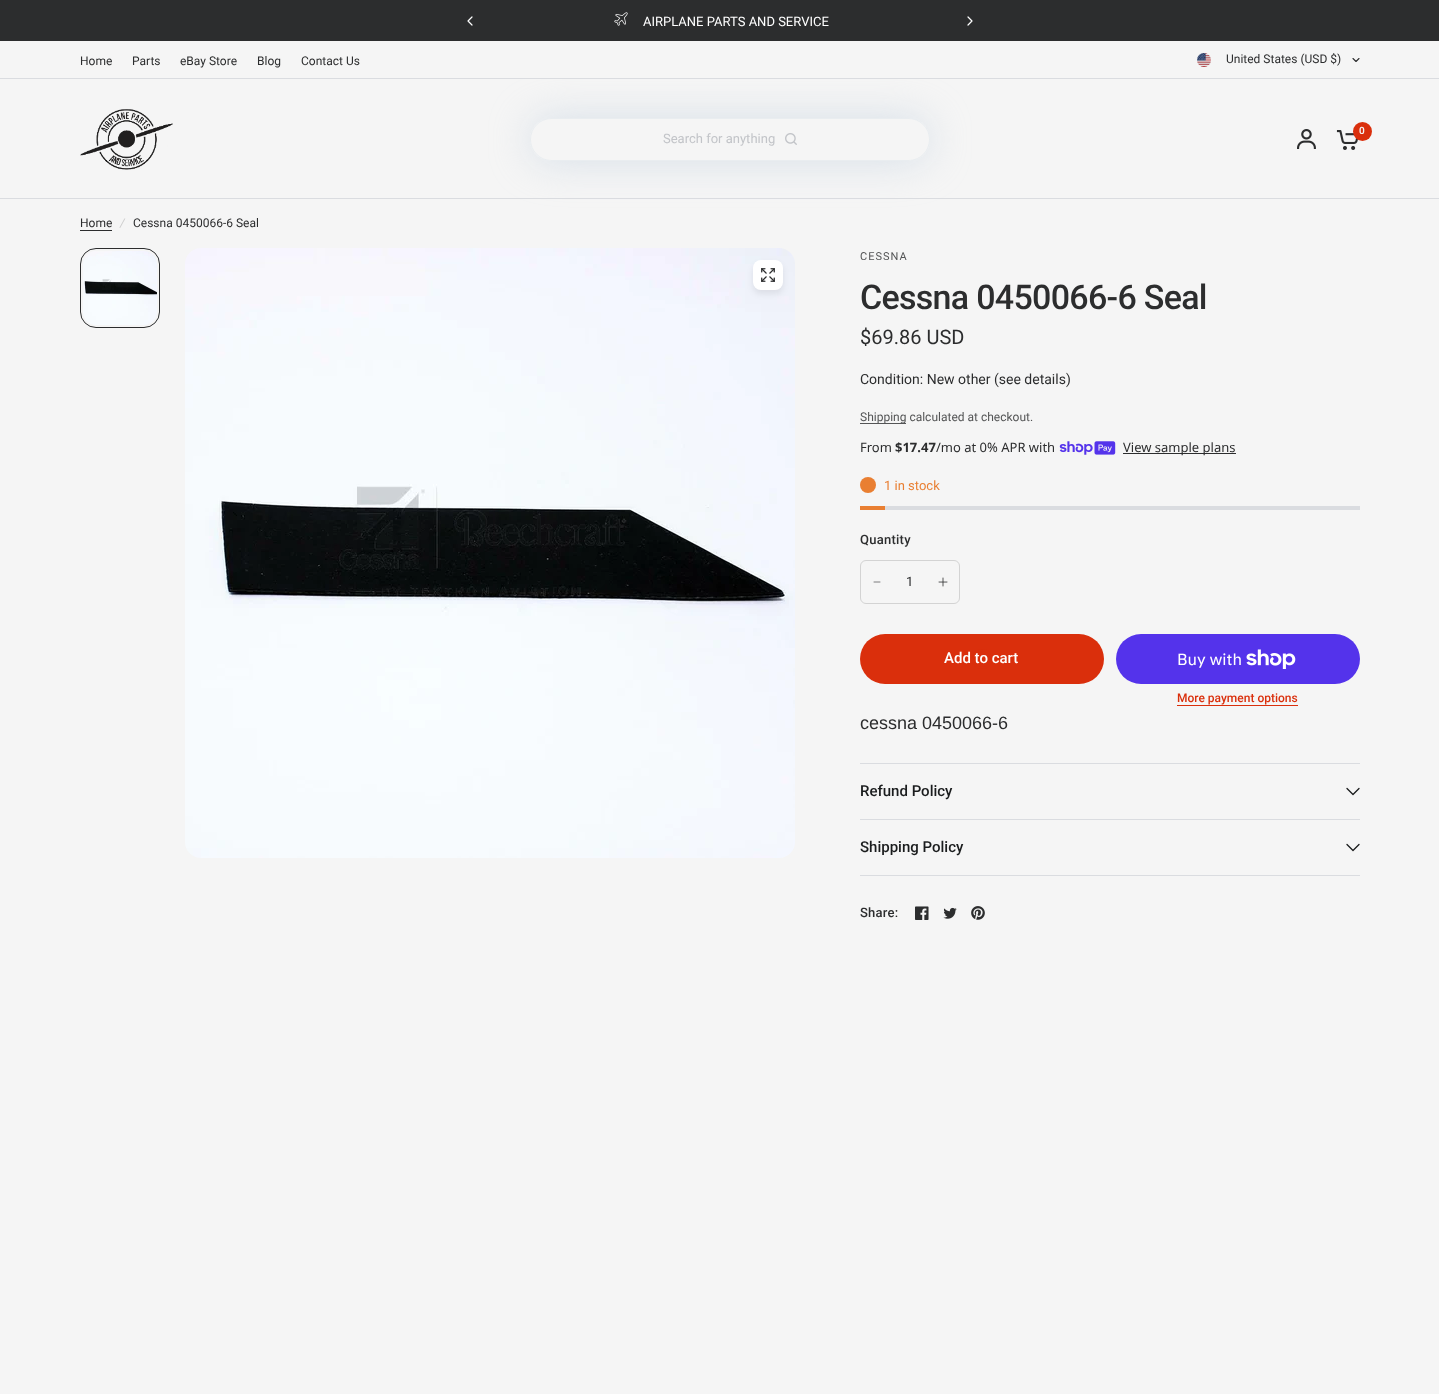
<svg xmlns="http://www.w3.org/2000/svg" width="1439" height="1394">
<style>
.a{font:13px Roboto;fill:#fff}
.b{font:12px Roboto;fill:#2c2d2e}
.c{font:600 10px Roboto;fill:#f5f5f5}
.d{font:13px Roboto;fill:#c2c4c8}
.e{font:italic 12px Roboto;fill:#cdcdcd}
.f{font:11px Roboto;letter-spacing:1px;fill:#545556}
.g{font:500 34px Roboto;letter-spacing:-0.7px;fill:#2c2d2e}
.h{font:20px Roboto;fill:#2c2d2e}
.i{font:14px Roboto;fill:#2c2d2e}
.j{font:12px Roboto;fill:#545556}
.k{font:13px Noto Sans;fill:#2c2d2e}
.l{font:bold 13px Noto Sans;fill:#2c2d2e}
.m{font:13px Roboto;fill:#e97f32}
.n{font:500 13px Roboto;letter-spacing:0.25px;fill:#2c2d2e}
.o{font:13px Roboto;fill:#2c2d2e}
.p{font:500 15px Roboto;fill:#fff}
.q{font:16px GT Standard;fill:#fff}
.r{font:500 12px Roboto;fill:#da2f0c}
.s{font:18px Liberation Sans;fill:#2c2d2e}
.t{font:500 15px Roboto;fill:#1a1c1d}
</style>
<defs>
<clipPath id="clip1"><path d="M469 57h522v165h-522zm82.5 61h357c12 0 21.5 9.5 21.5 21.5c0 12-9.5 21.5-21.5 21.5h-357c-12 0-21.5-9.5-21.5-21.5c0-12 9.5-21.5 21.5-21.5z" clip-rule="evenodd"/></clipPath>
</defs>
<rect width="100%" height="100%" fill="#2c2d2e"/>
<path fill="none" stroke="#fff" stroke-width="1.2" stroke-linecap="round" stroke-linejoin="round" d="M472 17l-4 4l4 4"/>
<image href="1.png" x="614" y="12" width="14" height="14"/>
<path fill="none" stroke="#fff" stroke-width="1.2" stroke-linecap="round" stroke-linejoin="round" d="M968 17l4 4l-4 4"/>
<path fill="#f5f5f5" d="M0 79h1439v119H0z"/>
<path fill="#f5f5f5" d="M0 199h1439v1195H0z"/>
<g clip-path="url(#clip1)">
<rect fill="#becedf8f" filter="blur(20px)" x="530" y="118" width="400" height="43" rx="21.5"/>
</g>
<path fill="#f5f5f5" d="M0 41h1439v37H0z"/>
<path fill="#dadce0" d="M0 78h1439v1H0z"/>
<image href="2.png" x="1197" y="53" width="14" height="14"/>
<path fill="none" stroke="#2c2d2e" stroke-width="1.1" stroke-linecap="round" stroke-linejoin="round" d="M1359 58.5l-3 3l-3-3"/>
<image href="3.png" x="80" y="109" width="93" height="61"/>
<image href="4.png" x="1297" y="129" width="19" height="20"/>
<image href="5.png" x="1336" y="130" width="22" height="20"/>
<circle fill="#da2f0c" cx="1362.5" cy="131.5" r="9.5"/>
<rect fill="none" stroke="#becedf36" x="530.5" y="118.5" width="399" height="42" rx="21"/>
<image href="6.png" x="785" y="133" width="12" height="12"/>
<path fill="#dadce0" d="M0 198h1439v1H0z"/>
<path fill="#2c2d2e" d="M80 230h32v1H80z"/>
<image href="7.png" x="80" y="248" width="80" height="80"/>
<rect fill="none" stroke="#f5f5f5" stroke-width="3" x="81.5" y="249.5" width="77" height="77" rx="14.5"/>
<rect fill="none" stroke="#2c2d2e" x="80.5" y="248.5" width="79" height="79" rx="15.5"/>
<image href="8.png" x="185" y="248" width="610" height="610"/>
<rect fill="#00000014" filter="blur(3px)" x="753" y="264" width="30" height="30" rx="8"/>
<rect fill="#fff" x="753" y="260" width="30" height="30" rx="8"/>
<image href="9.png" x="761" y="268" width="14" height="14"/>
<path fill="#545556" d="M860 423h46v1H860z"/>
<image href="10.png" x="1059" y="441" width="57" height="14"/>
<path fill="#2c2d2e" d="M1123 453h113v1H1123z"/>
<circle fill="#e97f32" cx="868" cy="485" r="8"/>
<path fill="#dadce0" d="M885 506h475v4H885z"/>
<path fill="#e97f32" d="M860 506h25v4H860z"/>
<rect fill="none" stroke="#d3d3d3" x="860.5" y="560.5" width="99" height="43" rx="5.5"/>
<path fill="none" stroke="#7c7d7e" stroke-linecap="round" stroke-linejoin="round" d="M874 582h6"/>
<image href="11.png" x="938" y="577" width="10" height="10"/>
<rect fill="#da2f0c" x="860" y="634" width="244" height="50" rx="25"/>
<rect fill="#5433eb" x="1116" y="634" width="244" height="50" rx="25"/>
<image href="12.png" x="1246" y="649" width="50" height="20"/>
<path fill="#da2f0c" d="M1177 705h121v1H1177z"/>
<path fill="#dadce0" d="M860 763h500v1H860z"/>
<path fill="#dadce0" d="M860 819h500v1H860z"/>
<path fill="none" stroke="#1a1c1d" stroke-width="1.3" stroke-linecap="round" stroke-linejoin="round" d="M1359 788.5l-6 6l-6-6"/>
<path fill="#dadce0" d="M860 875h500v1H860z"/>
<path fill="none" stroke="#1a1c1d" stroke-width="1.3" stroke-linecap="round" stroke-linejoin="round" d="M1359 844.5l-6 6l-6-6"/>
<image href="13.png" x="915" y="906" width="14" height="14"/>
<image href="14.png" x="943" y="907" width="14" height="12"/>
<image href="15.png" x="971" y="906" width="14" height="14"/>
<text class="a" x="643" y="26">AIRPLANE PARTS AND SERVICE</text>
<text class="b" x="80" y="65">Home</text>
<text class="b" x="132" y="65">Parts</text>
<text class="b" x="180" y="65">eBay Store</text>
<text class="b" x="257" y="65">Blog</text>
<text class="b" x="301" y="65">Contact Us</text>
<text class="b" x="1226" y="63">United States (USD $)</text>
<text class="c" x="1359" y="134">0</text>
<text class="d" x="663" y="143">Search for anything</text>
<text class="b" x="80" y="227">Home</text>
<text class="e" x="120" y="227">/</text>
<text class="b" x="133" y="227">Cessna 0450066-6 Seal</text>
<text class="f" x="860" y="260">CESSNA</text>
<text class="g" x="860" y="309">Cessna 0450066-6 Seal</text>
<text class="h" x="860" y="344">$69.86 USD</text>
<text class="i" x="860" y="384">Condition: New other (see details)</text>
<text class="j" x="860" y="421">Shipping calculated at checkout.</text>
<text class="k" x="860" y="452">From</text>
<text class="l" x="895" y="452">$17.47</text>
<text class="k" x="936" y="452">/mo at 0% APR with</text>
<text class="k" x="1123" y="452">View sample plans</text>
<text class="m" x="884" y="490">1 in stock</text>
<text class="n" x="860" y="544">Quantity</text>
<text class="o" x="906" y="586">1</text>
<text class="p" x="944" y="663">Add to cart</text>
<path fill="none" stroke="#da2f0c" stroke-width="1.8" d="M982 650c12 0 12 18 0 18c-12 0-12-18 0-18"/>
<text class="q" x="1177" y="665">Buy with</text>
<text class="r" x="1177" y="702">More payment options</text>
<text class="s" x="860" y="729">cessna 0450066-6</text>
<text class="t" x="860" y="796">Refund Policy</text>
<text class="t" x="860" y="852">Shipping Policy</text>
<text class="n" x="860" y="917">Share:</text>
</svg>
